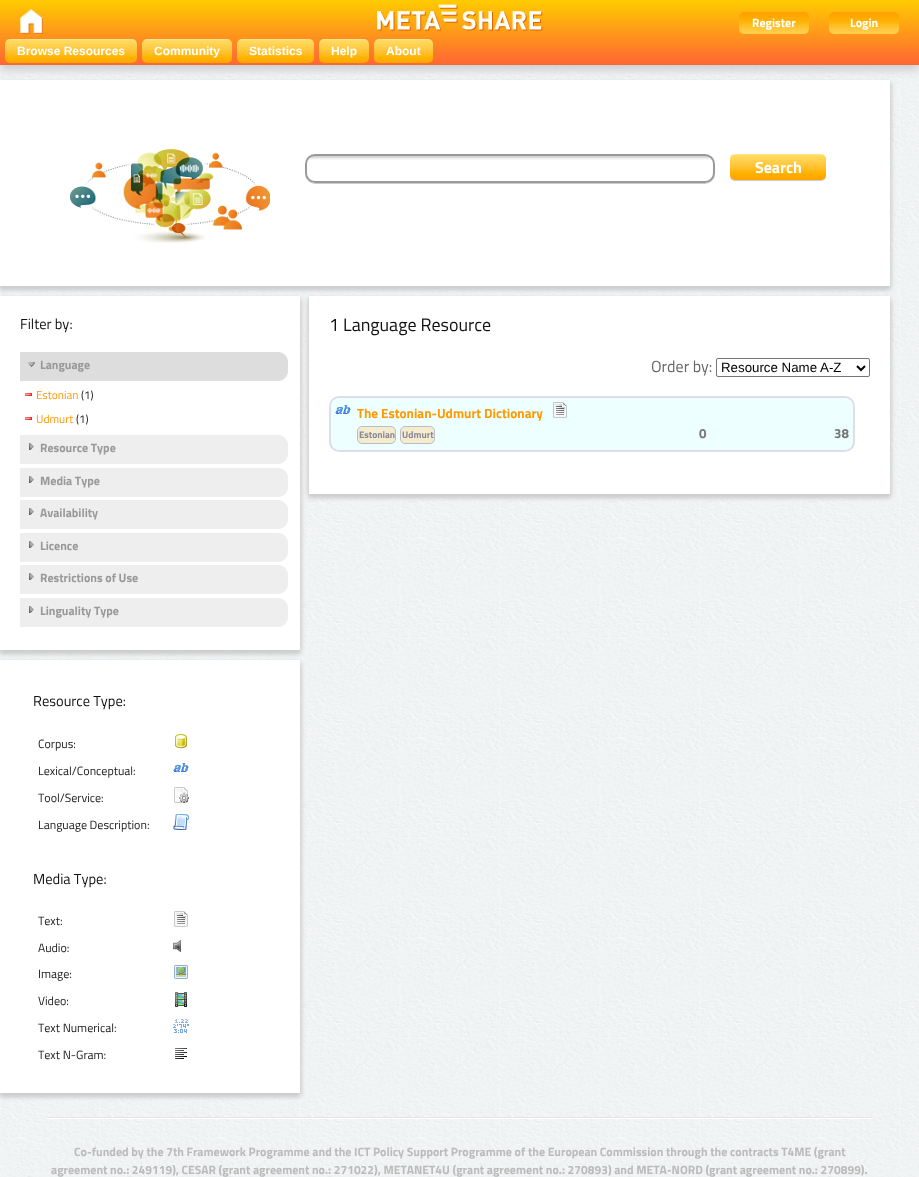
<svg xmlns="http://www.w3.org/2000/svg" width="919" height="1177">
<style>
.a{font:bold 12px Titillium;fill:#fff}
.b{font:bold 12px Liberation Sans;fill:#fff}
.c{font:bold 16px Titillium;fill:#fff}
.d{font:14.5px Titillium;fill:#111}
.e{font:bold 12px Titillium;fill:#999}
.f{font:11.5px Titillium;fill:#f90}
.g{font:11.5px Titillium;fill:#222}
.h{font:12px Titillium;fill:#222}
.i{font:18px Titillium;fill:#111}
.j{font:16px Titillium;fill:#666}
.k{font:13.3px Liberation Sans;fill:#000}
.l{font:bold 13.3px Titillium;fill:#f90}
.m{font:bold 9.5px Titillium;fill:#889}
.n{font:bold 13.3px Titillium;fill:#777}
.o{font:bold 12px Titillium;fill:#bbb}
</style>
<defs>
<linearGradient id="g1" gradientUnits="userSpaceOnUse" x1="0" y1="0" x2="0" y2="65"><stop offset="0" stop-color="#fc0"/><stop offset="1" stop-color="#f63"/></linearGradient>
</defs>
<rect width="100%" height="100%" fill="#fff"/>
<image href="1.png" x="0" y="65" width="919" height="1112"/>
<path fill="#ccc" filter="blur(2.5px)" d="M308 299h581v198H308z"/>
<path fill="#ccc" filter="blur(2.5px)" d="M310 299h581v198H310z"/>
<path fill="#fff" d="M309 296h581v198H309z"/>
<path fill="#ccc" filter="blur(2.5px)" d="M-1 83h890v206H-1z"/>
<path fill="#ccc" filter="blur(2.5px)" d="M1 83h890v206H1z"/>
<path fill="#fff" d="M0 80h890v206H0z"/>
<path fill="#ccc" filter="blur(5px)" d="M0 5h919v65H0z"/>
<path fill="url(#g1)" d="M0 0h919v65H0z"/>
<image href="2.png" x="20" y="9" width="23" height="25"/>
<image href="3.png" x="377" y="4" width="166" height="27"/>
<image href="4.png" x="739" y="12" width="70" height="22"/>
<image href="4.png" x="829" y="12" width="70" height="22"/>
<image href="5.png" x="5" y="39" width="132" height="24"/>
<image href="6.png" x="142" y="39" width="90" height="24"/>
<image href="7.png" x="237" y="39" width="77" height="24"/>
<image href="8.png" x="319" y="39" width="50" height="24"/>
<image href="9.png" x="374" y="39" width="59" height="24"/>
<image href="10.png" x="70" y="149" width="200" height="94"/>
<rect fill="#ccc" filter="blur(0.5px)" x="305" y="155" width="410" height="29" rx="10"/>
<rect fill="#fff" x="305" y="154" width="410" height="29" rx="10"/>
<image href="11.png" x="305" y="156" width="410" height="24"/>
<rect fill="none" stroke="#999" stroke-width="2" x="306" y="155" width="408" height="27" rx="9"/>
<rect fill="#ccc" filter="blur(0.5px)" x="730" y="155" width="96" height="26" rx="5"/>
<image href="12.png" x="730" y="154" width="96" height="26"/>
<path fill="#ccc" filter="blur(2.5px)" d="M-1 663h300v433H-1z"/>
<path fill="#ccc" filter="blur(2.5px)" d="M1 663h300v433H1z"/>
<path fill="#fff" d="M0 660h300v433H0z"/>
<path fill="#ccc" filter="blur(2.5px)" d="M-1 299h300v354H-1z"/>
<path fill="#ccc" filter="blur(2.5px)" d="M1 299h300v354H1z"/>
<path fill="#fff" d="M0 296h300v354H0z"/>
<path fill="#ddd" d="M20 352h258c5.5 0 10 4.5 10 10v9c0 5.5-4.5 10-10 10h-258z"/>
<image href="13.png" x="28" y="362" width="7" height="5"/>
<image href="14.png" x="25" y="393" width="7" height="3"/>
<image href="14.png" x="25" y="417" width="7" height="3"/>
<path fill="#eee" d="M20 435h258c5.5 0 10 4.5 10 10v9c0 5.5-4.5 10-10 10h-258z"/>
<image href="15.png" x="29" y="443" width="5" height="7"/>
<path fill="#eee" d="M20 468h258c5.5 0 10 4.5 10 10v9c0 5.5-4.5 10-10 10h-258z"/>
<image href="15.png" x="29" y="476" width="5" height="7"/>
<path fill="#eee" d="M20 500h258c5.5 0 10 4.5 10 10v9c0 5.5-4.5 10-10 10h-258z"/>
<image href="15.png" x="29" y="508" width="5" height="7"/>
<path fill="#eee" d="M20 533h258c5.5 0 10 4.5 10 10v9c0 5.5-4.5 10-10 10h-258z"/>
<image href="15.png" x="29" y="541" width="5" height="7"/>
<path fill="#eee" d="M20 565h258c5.5 0 10 4.5 10 10v9c0 5.5-4.5 10-10 10h-258z"/>
<image href="15.png" x="29" y="573" width="5" height="7"/>
<path fill="#eee" d="M20 598h258c5.5 0 10 4.5 10 10v9c0 5.5-4.5 10-10 10h-258z"/>
<image href="15.png" x="29" y="606" width="5" height="7"/>
<image href="16.png" x="175" y="734" width="12" height="15"/>
<image href="17.png" x="173" y="763" width="16" height="13"/>
<image href="18.png" x="174" y="787" width="15" height="16"/>
<image href="19.png" x="173" y="814" width="16" height="16"/>
<image href="20.png" x="174" y="911" width="14" height="16"/>
<image href="21.png" x="173" y="940" width="8" height="12"/>
<image href="22.png" x="174" y="965" width="14" height="14"/>
<image href="23.png" x="175" y="992" width="12" height="15"/>
<image href="24.png" x="173" y="1019" width="16" height="14"/>
<image href="25.png" x="175" y="1048" width="12" height="11"/>
<rect fill="none" stroke="#767676" x="716.5" y="358.5" width="153" height="18" rx="1.5"/>
<path fill="none" stroke="#000" stroke-width="2" d="M857 366l4 4l4-4"/>
<rect fill="#eff" stroke="#dde" stroke-width="2" x="330" y="397" width="524" height="54" rx="9"/>
<image href="26.png" x="335" y="405" width="16" height="13"/>
<image href="27.png" x="553" y="402" width="14" height="16"/>
<rect fill="#f5ecce" stroke="#bbc" x="357.5" y="426.5" width="38" height="17" rx="4.5"/>
<rect fill="#f5ecce" stroke="#bbc" x="400.5" y="426.5" width="34" height="17" rx="4.5"/>
<image href="28.png" x="46" y="1117" width="827" height="2"/>
<text class="a" x="752" y="27">Register</text>
<text class="a" x="850" y="27">Login</text>
<text class="b" x="17" y="55">Browse Resources</text>
<text class="b" x="154" y="55">Community</text>
<text class="b" x="249" y="55">Statistics</text>
<text class="b" x="331" y="55">Help</text>
<text class="b" x="386" y="55">About</text>
<text class="c" x="755" y="173">Search</text>
<text class="d" x="20" y="329">Filter by:</text>
<text class="e" x="40" y="369">Language</text>
<text class="f" x="36" y="399">Estonian</text>
<text class="g" x="81" y="399">(1)</text>
<text class="f" x="36" y="423">Udmurt</text>
<text class="g" x="76" y="423">(1)</text>
<text class="e" x="40" y="452">Resource Type</text>
<text class="e" x="40" y="485">Media Type</text>
<text class="e" x="40" y="517">Availability</text>
<text class="e" x="40" y="550">Licence</text>
<text class="e" x="40" y="582">Restrictions of Use</text>
<text class="e" x="40" y="615">Linguality Type</text>
<text class="d" x="33" y="706">Resource Type:</text>
<text class="h" x="38" y="748">Corpus:</text>
<text class="h" x="38" y="775">Lexical/Conceptual:</text>
<text class="h" x="38" y="802">Tool/Service:</text>
<text class="h" x="38" y="829">Language Description:</text>
<text class="d" x="33" y="884">Media Type:</text>
<text class="h" x="38" y="925">Text:</text>
<text class="h" x="38" y="952">Audio:</text>
<text class="h" x="38" y="978">Image:</text>
<text class="h" x="38" y="1005">Video:</text>
<text class="h" x="38" y="1032">Text Numerical:</text>
<text class="h" x="38" y="1059">Text N-Gram:</text>
<text class="i" x="329" y="331">1 Language Resource</text>
<text class="j" x="651" y="372">Order by:</text>
<text class="k" x="721" y="372">Resource Name A-Z</text>
<text class="l" x="357" y="418">The Estonian-Udmurt Dictionary</text>
<text class="m" x="359" y="438">Estonian</text>
<text class="m" x="402" y="438">Udmurt</text>
<text class="n" x="699" y="438">0</text>
<text class="n" x="834" y="438">38</text>
<text class="o" x="74" y="1156">Co-funded by the 7th Framework Programme and the ICT Policy Support Programme of the European Commission through the contracts T4ME (grant</text>
<text class="o" x="51" y="1174">agreement no.: 249119), CESAR (grant agreement no.: 271022), METANET4U (grant agreement no.: 270893) and META-NORD (grant agreement no.: 270899).</text>
</svg>
